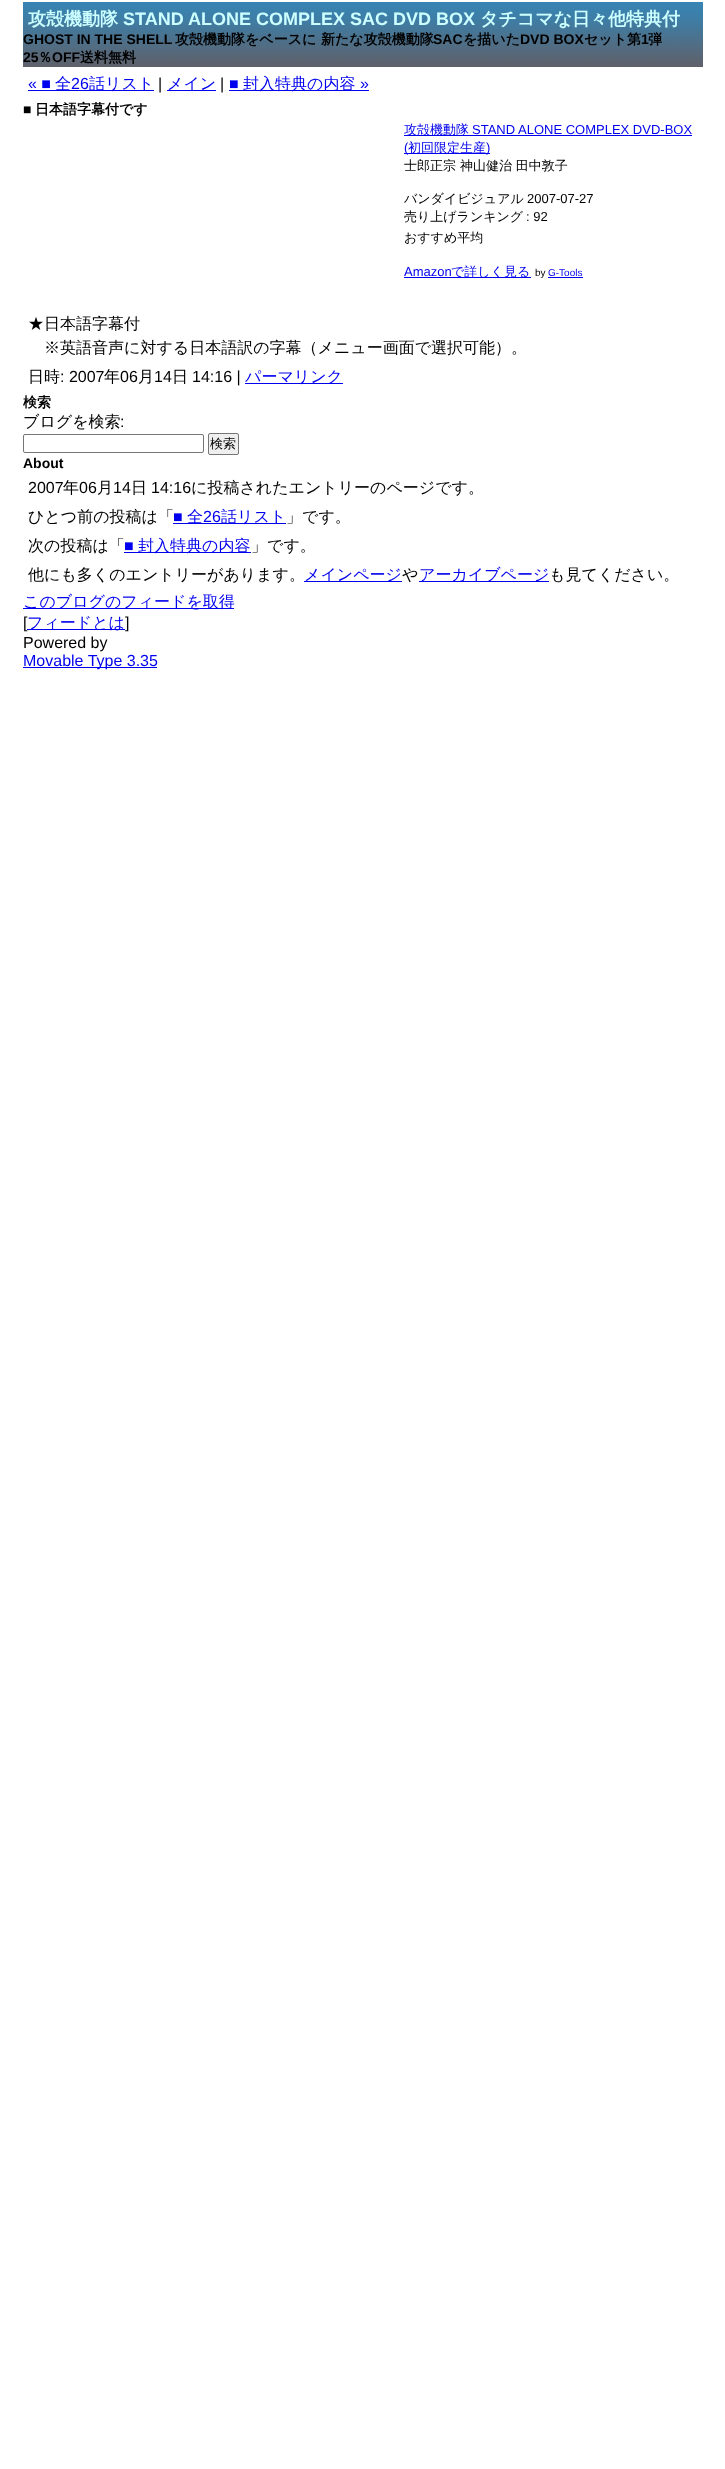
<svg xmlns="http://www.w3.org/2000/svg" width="725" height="2469">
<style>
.a{font:bold 18px WenQuanYi Zen Hei;fill:#cff}
.b{font:bold 18px Liberation Sans;fill:#cff}
.c{font:bold 14px Liberation Sans;fill:#000}
.d{font:bold 14px WenQuanYi Zen Hei;fill:#000}
.e{font:16px Liberation Sans;fill:#00e}
.f{font:500 16px WenQuanYi Zen Hei;fill:#00e}
.g{font:16px Liberation Sans;fill:#000}
.h{font:500 13px WenQuanYi Zen Hei;fill:#00e}
.i{font:13px Liberation Sans;fill:#00e}
.j{font:500 13px WenQuanYi Zen Hei;fill:#000}
.k{font:13px Liberation Sans;fill:#000}
.l{font:10px Liberation Sans;fill:#000}
.m{font:10px Liberation Sans;fill:#00e}
.n{font:500 16px WenQuanYi Zen Hei;fill:#000}
</style>
<rect width="100%" height="100%" fill="#fff"/>
<image href="1.png" x="23" y="2" width="680" height="65"/>
<path fill="#00e" d="M28 90h126v1H28z"/>
<path fill="#00e" d="M167 90h49v1H167z"/>
<path fill="#00e" d="M229 90h140v1H229z"/>
<path fill="#00e" d="M404 135h288v1H404z"/>
<path fill="#00e" d="M404 153h86v1H404z"/>
<path fill="#00e" d="M404 277h127v1H404z"/>
<path fill="#00e" d="M548 277h35v1H548z"/>
<path fill="#00e" d="M245 383h98v1H245z"/>
<rect fill="none" stroke="#767676" x="23.5" y="434.5" width="180" height="18" rx="1.5"/>
<rect fill="#efefef" stroke="#767676" x="208.5" y="433.5" width="30" height="21" rx="1.5"/>
<path fill="#00e" d="M173 523h113v1H173z"/>
<path fill="#00e" d="M124 552h127v1H124z"/>
<path fill="#00e" d="M304 581h98v1H304z"/>
<path fill="#00e" d="M419 581h130v1H419z"/>
<path fill="#00e" d="M23 608h211v1H23z"/>
<path fill="#00e" d="M27 629h98v1H27z"/>
<path fill="#00e" d="M23 667h134v1H23z"/>
<text class="a" x="28" y="25">攻殻機動隊</text>
<text class="b" x="123" y="25">STAND ALONE COMPLEX SAC DVD BOX</text>
<text class="a" x="480" y="25">タチコマな日々他特典付</text>
<text class="c" x="23" y="44">GHOST IN THE SHELL</text>
<text class="d" x="175" y="44">攻殻機動隊をベースに</text>
<text class="d" x="321" y="44">新たな攻殻機動隊</text>
<text class="c" x="433" y="44">SAC</text>
<text class="d" x="463" y="44">を描いた</text>
<text class="c" x="520" y="44">DVD BOX</text>
<text class="d" x="584" y="44">セット第</text>
<text class="c" x="641" y="44">1</text>
<text class="d" x="648" y="44">弾</text>
<text class="c" x="23" y="62">25</text>
<text class="d" x="38" y="62">％</text>
<text class="c" x="52" y="62">OFF</text>
<text class="d" x="80" y="62">送料無料</text>
<text class="e" x="28" y="89">« ■</text>
<text class="f" x="55" y="89">全</text>
<text class="e" x="71" y="89">26</text>
<text class="f" x="89" y="89">話リスト</text>
<text class="g" x="158" y="89">|</text>
<text class="f" x="167" y="89">メイン</text>
<text class="g" x="220" y="89">|</text>
<text class="e" x="229" y="89">■</text>
<text class="f" x="243" y="89">封入特典の内容</text>
<text class="e" x="360" y="89">»</text>
<text class="c" x="23" y="114">■</text>
<text class="d" x="35" y="114">日本語字幕付です</text>
<text class="h" x="404" y="134">攻殻機動隊</text>
<text class="i" x="472" y="134">STAND ALONE COMPLEX DVD-BOX</text>
<text class="i" x="404" y="152">(</text>
<text class="h" x="408" y="152">初回限定生産</text>
<text class="i" x="486" y="152">)</text>
<text class="j" x="404" y="170">士郎正宗 神山健治 田中敦子</text>
<text class="j" x="404" y="203">バンダイビジュアル</text>
<text class="k" x="527" y="203">2007-07-27</text>
<text class="j" x="404" y="221">売り上げランキング</text>
<text class="k" x="526" y="221">: 92</text>
<text class="j" x="404" y="242">おすすめ平均</text>
<text class="i" x="404" y="276">Amazon</text>
<text class="h" x="451" y="276">で詳しく見る</text>
<text class="l" x="535" y="276">by</text>
<text class="m" x="548" y="276">G-Tools</text>
<text class="n" x="28" y="329">★日本語字幕付</text>
<text class="n" x="44" y="353">※英語音声に対する日本語訳の字幕（メニュー画面で選択可能）。</text>
<text class="n" x="28" y="382">日時</text>
<text class="g" x="60" y="382">: 2007</text>
<text class="n" x="104" y="382">年</text>
<text class="g" x="120" y="382">06</text>
<text class="n" x="138" y="382">月</text>
<text class="g" x="154" y="382">14</text>
<text class="n" x="172" y="382">日</text>
<text class="g" x="192" y="382">14:16 |</text>
<text class="f" x="245" y="382">パーマリンク</text>
<text class="d" x="23" y="407">検索</text>
<text class="n" x="23" y="427">ブログを検索</text>
<text class="g" x="120" y="427">:</text>
<text class="j" x="210" y="448">検索</text>
<text class="c" x="23" y="468">About</text>
<text class="g" x="28" y="493">2007</text>
<text class="n" x="63" y="493">年</text>
<text class="g" x="79" y="493">06</text>
<text class="n" x="97" y="493">月</text>
<text class="g" x="113" y="493">14</text>
<text class="n" x="131" y="493">日</text>
<text class="g" x="151" y="493">14:16</text>
<text class="n" x="191" y="493">に投稿されたエントリーのページです。</text>
<text class="n" x="28" y="522">ひとつ前の投稿は「</text>
<text class="e" x="173" y="522">■</text>
<text class="f" x="187" y="522">全</text>
<text class="e" x="203" y="522">26</text>
<text class="f" x="221" y="522">話リスト</text>
<text class="n" x="286" y="522">」です。</text>
<text class="n" x="28" y="551">次の投稿は「</text>
<text class="e" x="124" y="551">■</text>
<text class="f" x="138" y="551">封入特典の内容</text>
<text class="n" x="251" y="551">」です。</text>
<text class="n" x="28" y="580">他にも多くのエントリーがあります。</text>
<text class="f" x="304" y="580">メインページ</text>
<text class="n" x="402" y="580">や</text>
<text class="f" x="419" y="580">アーカイブページ</text>
<text class="n" x="549" y="580">も見てください。</text>
<text class="f" x="23" y="607">このブログのフィードを取得</text>
<text class="g" x="23" y="628">[</text>
<text class="f" x="27" y="628">フィードとは</text>
<text class="g" x="125" y="628">]</text>
<text class="g" x="23" y="648">Powered by</text>
<text class="e" x="23" y="666">Movable Type 3.35</text>
</svg>
